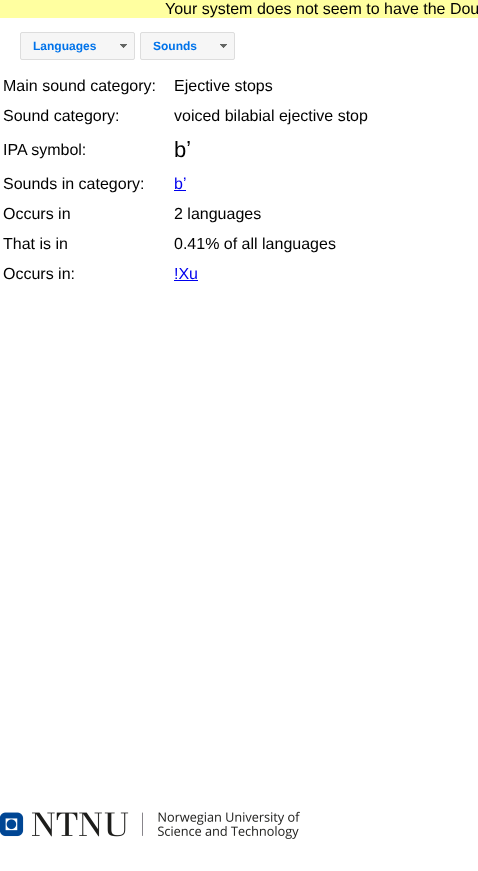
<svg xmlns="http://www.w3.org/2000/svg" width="478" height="871">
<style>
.a{font:16px Liberation Sans;fill:#000}
.b{font:bold 12px Liberation Sans;fill:#0073ea}
.c{font:22px Liberation Sans;fill:#000}
.d{font:16px Liberation Sans;fill:#00e}
</style>
<rect width="100%" height="100%" fill="#fff"/>
<path fill="#ffffa0" d="M0 0h478v18H0z"/>
<rect fill="#f6f6f6" stroke="#ddd" x="20.5" y="32.5" width="114" height="27" rx="1.5"/>
<image href="1.png" x="120" y="44" width="7" height="4"/>
<rect fill="#f6f6f6" stroke="#ddd" x="140.5" y="32.5" width="94" height="27" rx="1.5"/>
<image href="1.png" x="220" y="44" width="7" height="4"/>
<path fill="#00e" d="M174 190h12v1H174z"/>
<path fill="#00e" d="M174 280h24v1H174z"/>
<image href="2.png" x="0" y="811" width="300" height="28"/>
<text class="a" x="165" y="14">Your system does not seem to have the Dou</text>
<text class="b" x="33" y="50">Languages</text>
<text class="b" x="153" y="50">Sounds</text>
<text class="a" x="3" y="91">Main sound category:</text>
<text class="a" x="174" y="91">Ejective stops</text>
<text class="a" x="3" y="121">Sound category:</text>
<text class="a" x="174" y="121">voiced bilabial ejective stop</text>
<text class="a" x="3" y="155">IPA symbol:</text>
<text class="c" x="174" y="157">bʼ</text>
<text class="a" x="3" y="189">Sounds in category:</text>
<text class="d" x="174" y="189">bʼ</text>
<text class="a" x="3" y="219">Occurs in</text>
<text class="a" x="174" y="219">2 languages</text>
<text class="a" x="3" y="249">That is in</text>
<text class="a" x="174" y="249">0.41% of all languages</text>
<text class="a" x="3" y="279">Occurs in:</text>
<text class="d" x="174" y="279">!Xu</text>
</svg>
